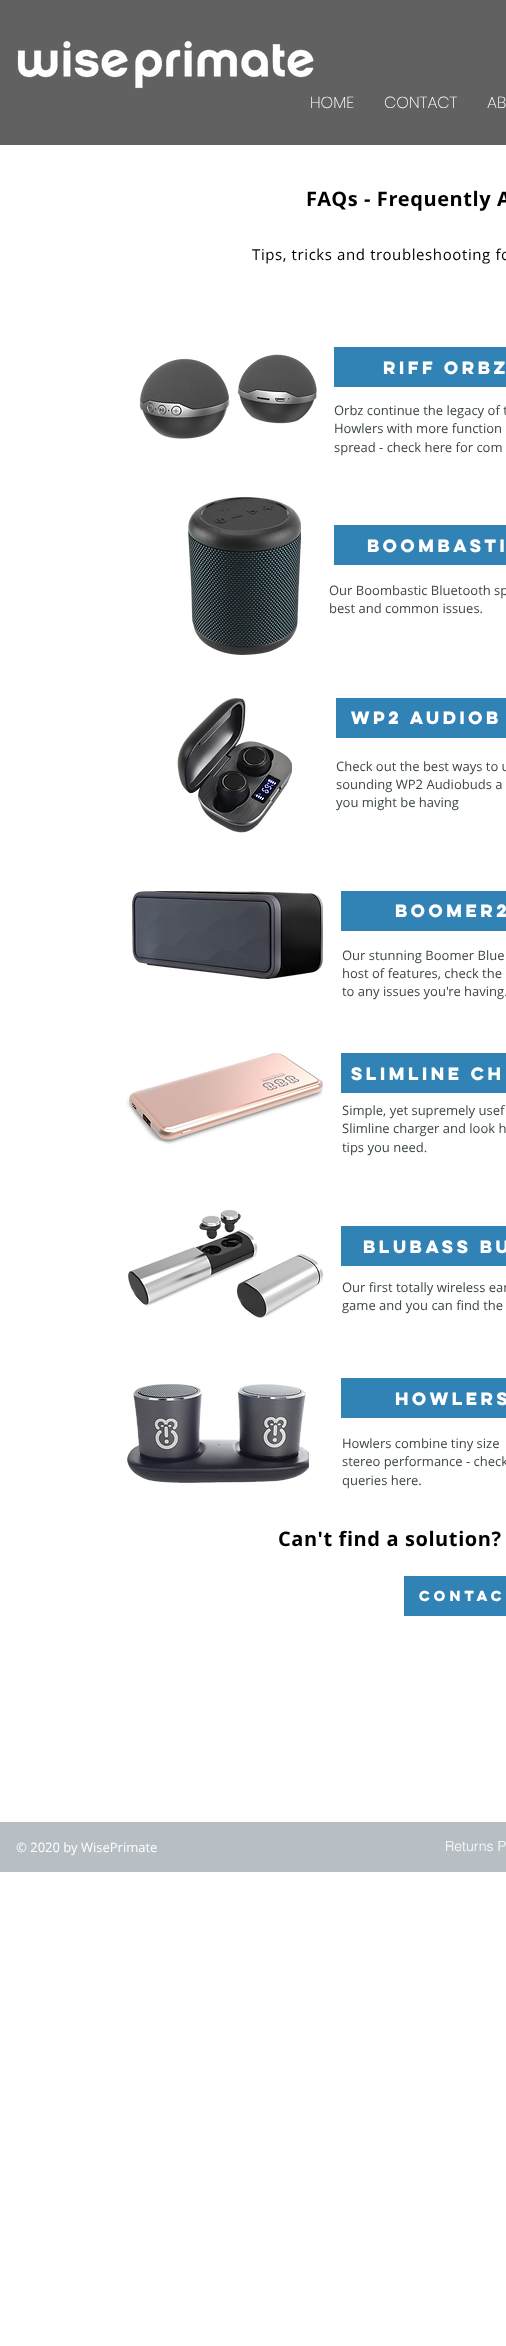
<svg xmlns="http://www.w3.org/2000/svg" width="506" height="2346">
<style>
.a{font:200 16px Poppins;fill:#fff}
.b{font:bold 20px Open Sans;letter-spacing:0.6px;fill:#000}
.c{font:15px Open Sans;letter-spacing:0.6px;fill:#000}
.d{font:bold 16px 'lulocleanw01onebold';fill:#fff}
.e{font:13px Open Sans;fill:#3c4547}
.f{font:bold 13px 'lulocleanw01onebold';letter-spacing:1.25px;fill:#fff}
.g{font:13px Open Sans;fill:#fff}
.h{font:300 14px helvetica;fill:#fff}
</style>
<rect width="100%" height="100%" fill="#fff"/>
<path fill="#616161" d="M0 0h506v145H0z"/>
<image href="1.png" x="17" y="40" width="297" height="49"/>
<image href="2.png" x="139" y="354" width="178" height="85"/>
<path fill="#3182b5" d="M334 347h172v40H334z"/>
<image href="3.png" x="188" y="497" width="113" height="158"/>
<path fill="#3182b5" d="M334 525h172v40H334z"/>
<image href="4.png" x="177" y="698" width="115" height="135"/>
<path fill="#3182b5" d="M336 698h170v40H336z"/>
<image href="5.png" x="132" y="891" width="191" height="88"/>
<path fill="#3182b5" d="M341 891h165v40H341z"/>
<image href="6.png" x="126" y="1053" width="197" height="92"/>
<path fill="#3182b5" d="M341 1053h165v40H341z"/>
<image href="7.png" x="128" y="1210" width="195" height="109"/>
<path fill="#3182b5" d="M341 1226h165v40H341z"/>
<image href="8.png" x="127" y="1384" width="182" height="99"/>
<path fill="#3182b5" d="M341 1378h165v40H341z"/>
<path fill="#3182b5" d="M404 1576h102v40H404z"/>
<path fill="#b7bfc5" d="M0 1822h506v50H0z"/>
<text class="a" x="310" y="108">HOME</text>
<text class="a" x="384" y="108">CONTACT</text>
<text class="a" x="487" y="108">AB</text>
<text class="b" x="306" y="206">FAQs - Frequently A</text>
<text class="c" x="252" y="260">Tips, tricks and troubleshooting fo</text>
<text class="d" x="383" y="374">RIFF ORBZ</text>
<text class="e" x="334" y="415">Orbz continue the legacy of t</text>
<text class="e" x="334" y="433">Howlers with more function</text>
<text class="e" x="334" y="452">spread - check here for com</text>
<text class="d" x="367" y="552">BOOMBASTI</text>
<text class="e" x="329" y="595">Our Boombastic Bluetooth sp</text>
<text class="e" x="329" y="613">best and common issues.</text>
<text class="d" x="351" y="724">WP2 AUDIOB</text>
<text class="e" x="336" y="771">Check out the best ways to u</text>
<text class="e" x="336" y="789">sounding WP2 Audiobuds a</text>
<text class="e" x="336" y="807">you might be having</text>
<text class="d" x="395" y="917">BOOMER2</text>
<text class="e" x="342" y="960">Our stunning Boomer Blue</text>
<text class="e" x="342" y="978">host of features, check the</text>
<text class="e" x="342" y="996">to any issues you're having.</text>
<text class="d" x="351" y="1080">SLIMLINE CH</text>
<text class="e" x="342" y="1115">Simple, yet supremely usef</text>
<text class="e" x="342" y="1133">Slimline charger and look h</text>
<text class="e" x="342" y="1152">tips you need.</text>
<text class="d" x="363" y="1253">BLUBASS BU</text>
<text class="e" x="342" y="1292">Our first totally wireless ear</text>
<text class="e" x="342" y="1310">game and you can find the</text>
<text class="d" x="395" y="1405">HOWLERS</text>
<text class="e" x="342" y="1448">Howlers combine tiny size</text>
<text class="e" x="342" y="1466">stereo performance - check</text>
<text class="e" x="342" y="1485">queries here.</text>
<text class="b" x="278" y="1546">Can't find a solution?</text>
<text class="f" x="419" y="1601">Contac</text>
<text class="g" x="16" y="1852">© 2020 by WisePrimate</text>
<text class="h" x="445" y="1851">Returns P</text>
</svg>
